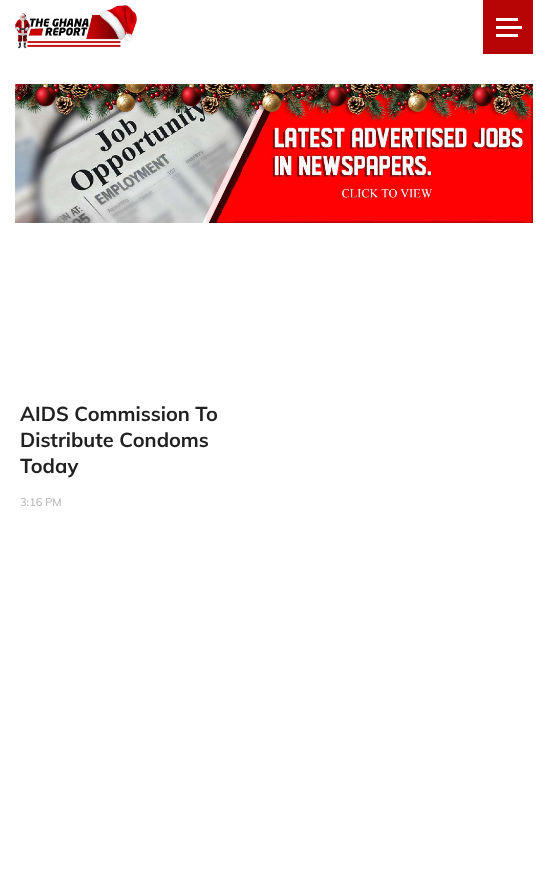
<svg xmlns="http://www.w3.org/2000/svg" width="548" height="878">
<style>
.a{font:bold 20px Muli;fill:#212121}
.b{font:11px Muli;fill:#b1b0b0}
</style>
<rect width="100%" height="100%" fill="#fff"/>
<image href="1.png" x="15" y="5" width="122" height="44"/>
<path fill="#b70405" d="M484 0h49v54H484z"/>
<path fill="#ac0710" d="M483 0h1v54H483z"/>
<path fill="#fff" d="M496 26h26v3H496z"/>
<path fill="#fff" d="M496 18h22v3H496z"/>
<path fill="#fff" d="M496 34h22v3H496z"/>
<image href="2.png" x="15" y="84" width="518" height="139"/>
<text class="a" x="20" y="421">AIDS Commission To</text>
<text class="a" x="20" y="447">Distribute Condoms</text>
<text class="a" x="20" y="473">Today</text>
<text class="b" x="20" y="506">3:16 PM</text>
</svg>
